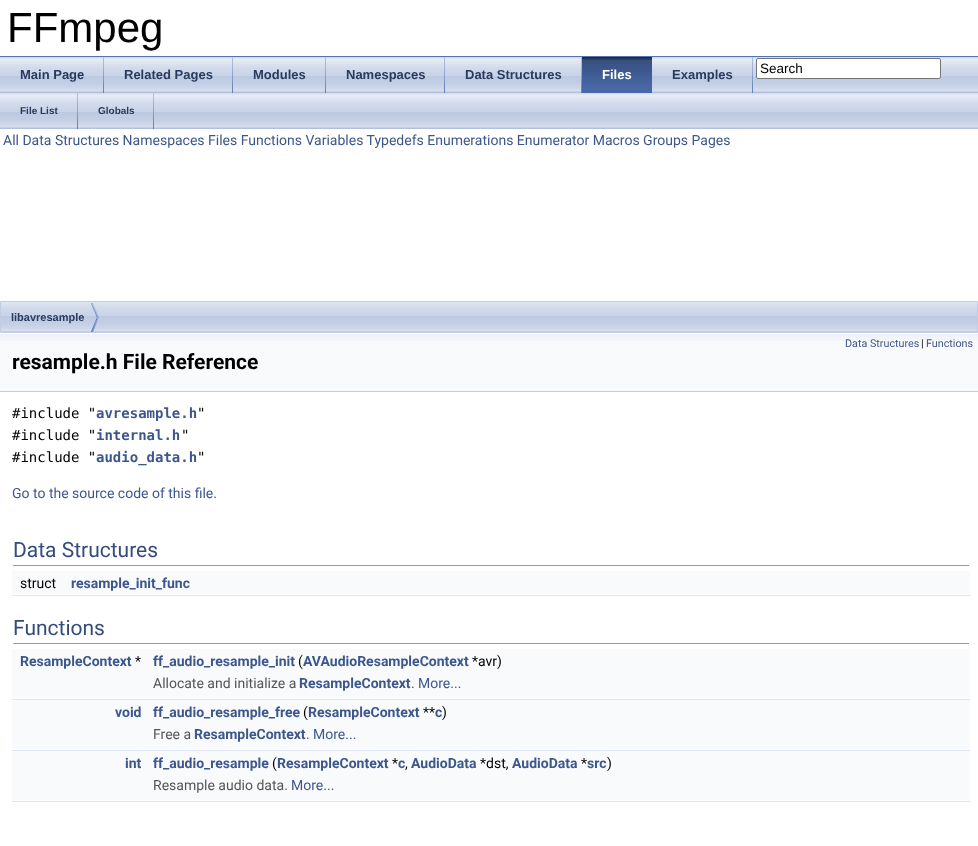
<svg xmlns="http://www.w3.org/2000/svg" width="978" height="846">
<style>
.a{font:42px Liberation Sans;fill:#000}
.b{font:bold 13px Liberation Sans;fill:#283a5d}
.c{font:bold 13px Liberation Sans;fill:#fff}
.d{font:13.5px Liberation Sans;fill:#000}
.e{font:bold 10px Liberation Sans;fill:#283a5d}
.f{font:14px Roboto;fill:#3d578c}
.g{font:bold 11px Liberation Sans;fill:#283a5d}
.h{font:10.75px Roboto;fill:#3d578c}
.i{font:10.75px Roboto;fill:#000}
.j{font:bold 21px Roboto;fill:#000}
.k{font:14px DejaVu Sans Mono;fill:#000}
.l{font:bold 14px DejaVu Sans Mono;fill:#3d578c}
.m{font:21px Roboto;fill:#354c7b}
.n{font:14px Roboto;fill:#000}
.o{font:bold 14px Roboto;fill:#3d578c}
.p{font:14px Roboto;fill:#555}
</style>
<rect width="100%" height="100%" fill="#fff"/>
<path fill="#5373b4" d="M0 56h978v1H0z"/>
<image href="1.png" x="0" y="57" width="978" height="36"/>
<image href="2.png" x="103" y="57" width="1" height="36"/>
<image href="2.png" x="232" y="57" width="1" height="36"/>
<image href="2.png" x="325" y="57" width="1" height="36"/>
<image href="2.png" x="444" y="57" width="1" height="36"/>
<image href="2.png" x="581" y="57" width="1" height="36"/>
<image href="3.png" x="582" y="57" width="70" height="36"/>
<image href="2.png" x="752" y="57" width="1" height="36"/>
<rect fill="#fff" stroke="#767676" x="756.5" y="58.5" width="184" height="20" rx="1.5"/>
<image href="1.png" x="0" y="93" width="978" height="36"/>
<image href="2.png" x="77" y="93" width="1" height="36"/>
<image href="2.png" x="153" y="93" width="1" height="36"/>
<image href="4.png" x="1" y="302" width="976" height="30"/>
<path fill="none" stroke="#c2cde4" d="M0.5 301.5h977v31H0.5z"/>
<image href="5.png" x="91" y="303" width="8" height="29"/>
<path fill="#f9fafc" d="M0 341h978v50H0z"/>
<image href="6.png" x="0" y="333" width="978" height="8"/>
<path fill="#c4cfe5" d="M0 391h978v1H0z"/>
<path fill="#879ecb" d="M13 565h956v1H13z"/>
<path fill="#f9fafc" d="M12 571h958v23H12z"/>
<path fill="#dee4f0" d="M12 595h958v1H12z"/>
<path fill="#879ecb" d="M13 643h956v1H13z"/>
<path fill="#f9fafc" d="M12 649h958v23H12z"/>
<path fill="#f9fafc" d="M12 672h958v26H12z"/>
<path fill="#dee4f0" d="M12 699h958v1H12z"/>
<path fill="#f9fafc" d="M12 700h958v23H12z"/>
<path fill="#f9fafc" d="M12 723h958v26H12z"/>
<path fill="#dee4f0" d="M12 750h958v1H12z"/>
<path fill="#f9fafc" d="M12 751h958v23H12z"/>
<path fill="#f9fafc" d="M12 774h958v26H12z"/>
<path fill="#dee4f0" d="M12 801h958v1H12z"/>
<text class="a" x="7" y="42">FFmpeg</text>
<text class="b" x="20" y="79">Main Page</text>
<text class="b" x="124" y="79">Related Pages</text>
<text class="b" x="253" y="79">Modules</text>
<text class="b" x="346" y="79">Namespaces</text>
<text class="b" x="465" y="79">Data Structures</text>
<text class="c" x="602" y="79">Files</text>
<text class="b" x="672" y="79">Examples</text>
<text class="d" x="760" y="73">Search</text>
<text class="e" x="20" y="114">File List</text>
<text class="e" x="98" y="114">Globals</text>
<text class="f" x="3" y="145">All Data Structures Namespaces Files Functions Variables Typedefs Enumerations Enumerator Macros Groups Pages</text>
<text class="g" x="11" y="321">libavresample</text>
<text class="h" x="845" y="347">Data Structures</text>
<text class="i" x="921" y="347">|</text>
<text class="h" x="926" y="347">Functions</text>
<text class="j" x="12" y="369">resample.h File Reference</text>
<text class="k" x="12" y="418">#include "</text>
<text class="l" x="96" y="418">avresample.h</text>
<text class="k" x="197" y="418">"</text>
<text class="k" x="12" y="440">#include "</text>
<text class="l" x="96" y="440">internal.h</text>
<text class="k" x="181" y="440">"</text>
<text class="k" x="12" y="462">#include "</text>
<text class="l" x="96" y="462">audio_data.h</text>
<text class="k" x="197" y="462">"</text>
<text class="f" x="12" y="498">Go to the source code of this file.</text>
<text class="m" x="13" y="557">Data Structures</text>
<text class="n" x="20" y="588">struct</text>
<text class="o" x="71" y="588">resample_init_func</text>
<text class="m" x="13" y="635">Functions</text>
<text class="o" x="20" y="666">ResampleContext</text>
<text class="n" x="135" y="666">*</text>
<text class="o" x="153" y="666">ff_audio_resample_init</text>
<text class="n" x="298" y="666">(</text>
<text class="o" x="303" y="666">AVAudioResampleContext</text>
<text class="n" x="472" y="666">*avr)</text>
<text class="p" x="153" y="688">Allocate and initialize a</text>
<text class="o" x="299" y="688">ResampleContext</text>
<text class="p" x="411" y="688">.</text>
<text class="f" x="418" y="688">More...</text>
<text class="o" x="115" y="717">void</text>
<text class="o" x="153" y="717">ff_audio_resample_free</text>
<text class="n" x="303" y="717">(</text>
<text class="o" x="308" y="717">ResampleContext</text>
<text class="n" x="423" y="717">**</text>
<text class="o" x="435" y="717">c</text>
<text class="n" x="442" y="717">)</text>
<text class="p" x="153" y="739">Free a</text>
<text class="o" x="194" y="739">ResampleContext</text>
<text class="p" x="306" y="739">.</text>
<text class="f" x="313" y="739">More...</text>
<text class="o" x="125" y="768">int</text>
<text class="o" x="153" y="768">ff_audio_resample</text>
<text class="n" x="272" y="768">(</text>
<text class="o" x="277" y="768">ResampleContext</text>
<text class="n" x="392" y="768">*</text>
<text class="o" x="398" y="768">c</text>
<text class="n" x="405" y="768">,</text>
<text class="o" x="411" y="768">AudioData</text>
<text class="n" x="480" y="768">*dst,</text>
<text class="o" x="512" y="768">AudioData</text>
<text class="n" x="581" y="768">*</text>
<text class="o" x="587" y="768">src</text>
<text class="n" x="607" y="768">)</text>
<text class="p" x="153" y="790">Resample audio data.</text>
<text class="f" x="291" y="790">More...</text>
</svg>
